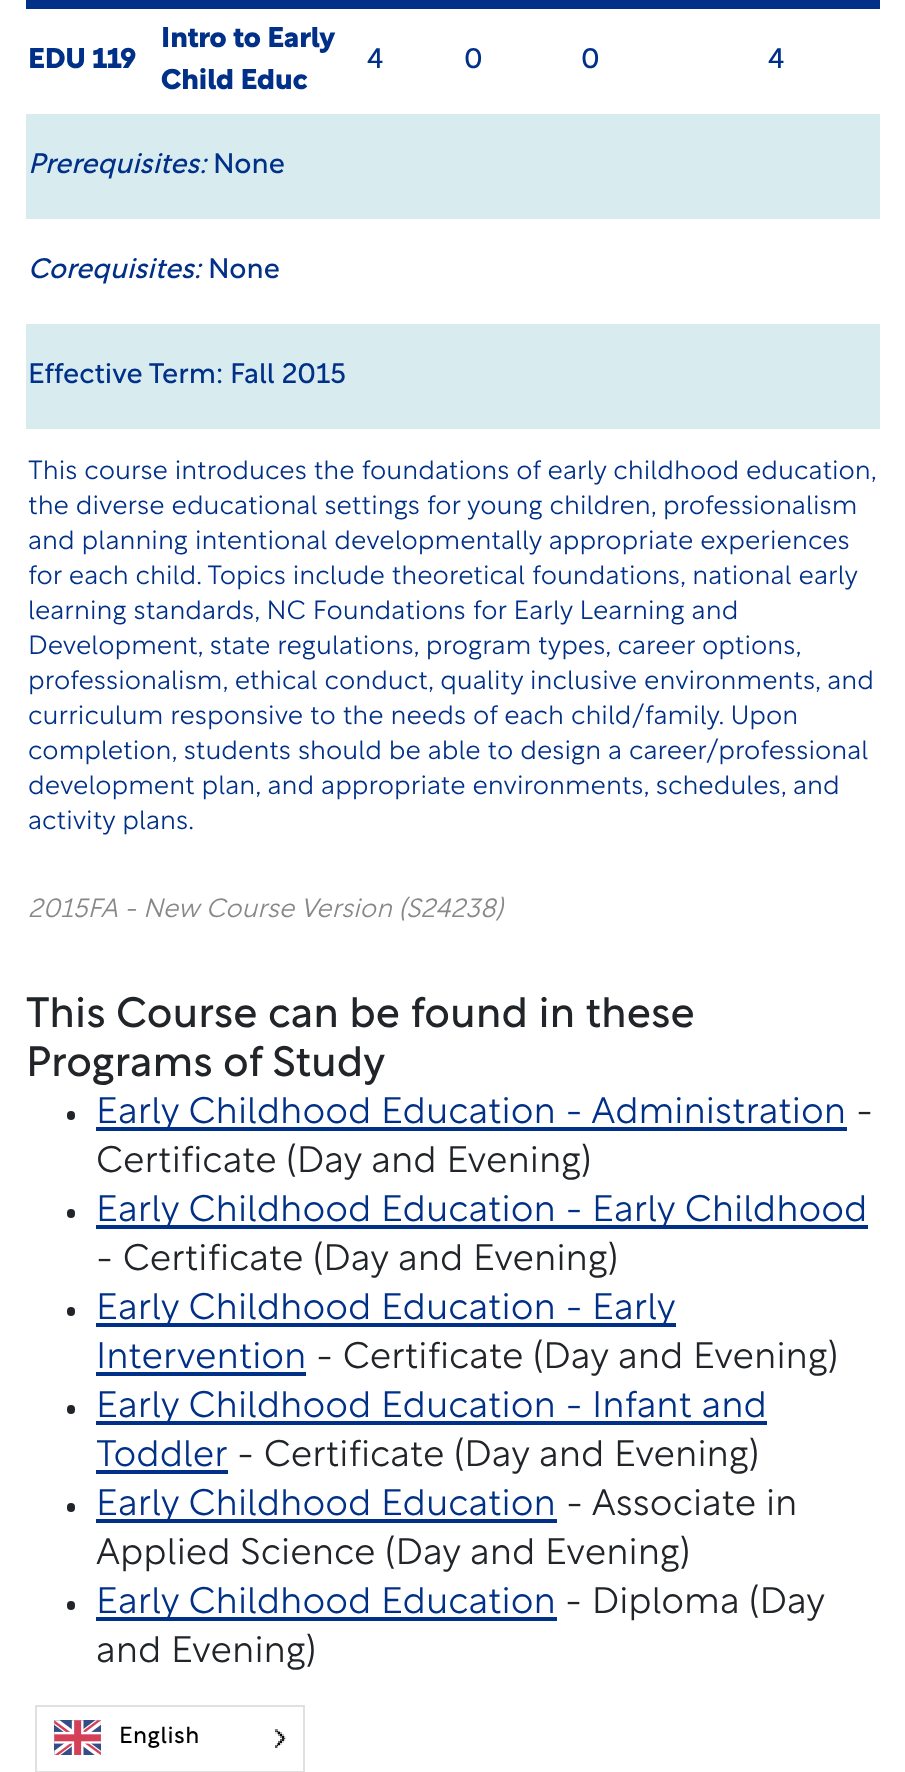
<svg xmlns="http://www.w3.org/2000/svg" width="905" height="1772">
<style>
.a{font:800 28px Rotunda;fill:#003087}
.b{font:28px Rotunda;fill:#003087}
.c{font:italic 28px Rotunda;fill:#003087}
.d{font:300 26.25px Rotunda;fill:#003087}
.e{font:italic 300 26.25px Rotunda;fill:#888}
.f{font:42px Rotunda;fill:#212529}
.g{font:300 36.75px Rotunda;fill:#003087}
.h{font:300 36.75px Rotunda;fill:#212529}
.i{font:23px Rotunda;letter-spacing:0.5px;fill:#000}
</style>
<rect width="100%" height="100%" fill="#fff"/>
<path fill="#003087" d="M26 0h854v9H26z"/>
<path fill="#d8ecf0" d="M26 114h854v105H26z"/>
<path fill="#d8ecf0" d="M26 324h854v105H26z"/>
<rect fill="#212529" x="67" y="1111" width="8" height="9" rx="4"/>
<path fill="#003087" d="M96 1127h751v4H96z"/>
<rect fill="#212529" x="67" y="1209" width="8" height="9" rx="4"/>
<path fill="#003087" d="M96 1225h772v4H96z"/>
<rect fill="#212529" x="67" y="1307" width="8" height="9" rx="4"/>
<path fill="#003087" d="M96 1323h580v4H96z"/>
<path fill="#003087" d="M96 1372h210v4H96z"/>
<rect fill="#212529" x="67" y="1405" width="8" height="9" rx="4"/>
<path fill="#003087" d="M96 1421h671v4H96z"/>
<path fill="#003087" d="M96 1470h132v4H96z"/>
<rect fill="#212529" x="67" y="1503" width="8" height="9" rx="4"/>
<path fill="#003087" d="M96 1519h461v4H96z"/>
<rect fill="#212529" x="67" y="1601" width="8" height="9" rx="4"/>
<path fill="#003087" d="M96 1617h461v4H96z"/>
<path fill="none" stroke="#e0e0e0" stroke-width="2" d="M36 1706h268v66H36z"/>
<image href="1.png" x="54" y="1720" width="47" height="35"/>
<image href="2.png" x="275" y="1729" width="11" height="19"/>
<text class="a" x="28" y="68">EDU 119</text>
<text class="a" x="161" y="47">Intro to Early</text>
<text class="a" x="161" y="89">Child Educ</text>
<text class="b" x="367" y="68">4</text>
<text class="b" x="464" y="68">0</text>
<text class="b" x="581" y="68">0</text>
<text class="b" x="768" y="68">4</text>
<text class="c" x="28" y="173">Prerequisites:</text>
<text class="b" x="213" y="173">None</text>
<text class="c" x="28" y="278">Corequisites:</text>
<text class="b" x="208" y="278">None</text>
<text class="b" x="28" y="383">Effective Term: Fall 2015</text>
<text class="d" x="28" y="479">This course introduces the foundations of early childhood education,</text>
<text class="d" x="28" y="514">the diverse educational settings for young children, professionalism</text>
<text class="d" x="28" y="549">and planning intentional developmentally appropriate experiences</text>
<text class="d" x="28" y="584">for each child. Topics include theoretical foundations, national early</text>
<text class="d" x="28" y="619">learning standards, NC Foundations for Early Learning and</text>
<text class="d" x="28" y="654">Development, state regulations, program</text>
<text class="d" x="538" y="654">types, career options,</text>
<text class="d" x="28" y="689">professionalism, ethical conduct, quality inclusive environments, and</text>
<text class="d" x="28" y="724">curriculum responsive to the needs of each child/family. Upon</text>
<text class="d" x="28" y="759">completion, students should be able to design a career/professional</text>
<text class="d" x="28" y="794">development plan, and appropriate environments, schedules, and</text>
<text class="d" x="28" y="829">activity plans.</text>
<text class="e" x="28" y="917">2015FA - New Course Version (S24238)</text>
<text class="f" x="26" y="1027">This Course can be found in these</text>
<text class="f" x="26" y="1076">Programs of Study</text>
<text class="g" x="96" y="1123">Early Childhood Education - Administration</text>
<text class="h" x="856" y="1123">-</text>
<text class="h" x="96" y="1172">Certificate (Day and Evening)</text>
<text class="g" x="96" y="1221">Early Childhood Education - Early Childhood</text>
<text class="h" x="96" y="1270">- Certificate (Day and Evening)</text>
<text class="g" x="96" y="1319">Early Childhood Education - Early</text>
<text class="g" x="96" y="1368">Intervention</text>
<text class="h" x="316" y="1368">- Certificate (Day and Evening)</text>
<text class="g" x="96" y="1417">Early Childhood Education - Infant and</text>
<text class="g" x="96" y="1466">Toddler</text>
<text class="h" x="237" y="1466">- Certificate (Day and Evening)</text>
<text class="g" x="96" y="1515">Early Childhood Education</text>
<text class="h" x="566" y="1515">- Associate in</text>
<text class="h" x="96" y="1564">Applied Science (Day and Evening)</text>
<text class="g" x="96" y="1613">Early Childhood Education</text>
<text class="h" x="565" y="1613">- Diploma (Day</text>
<text class="h" x="96" y="1662">and Evening)</text>
<text class="i" x="119" y="1743">English</text>
</svg>
